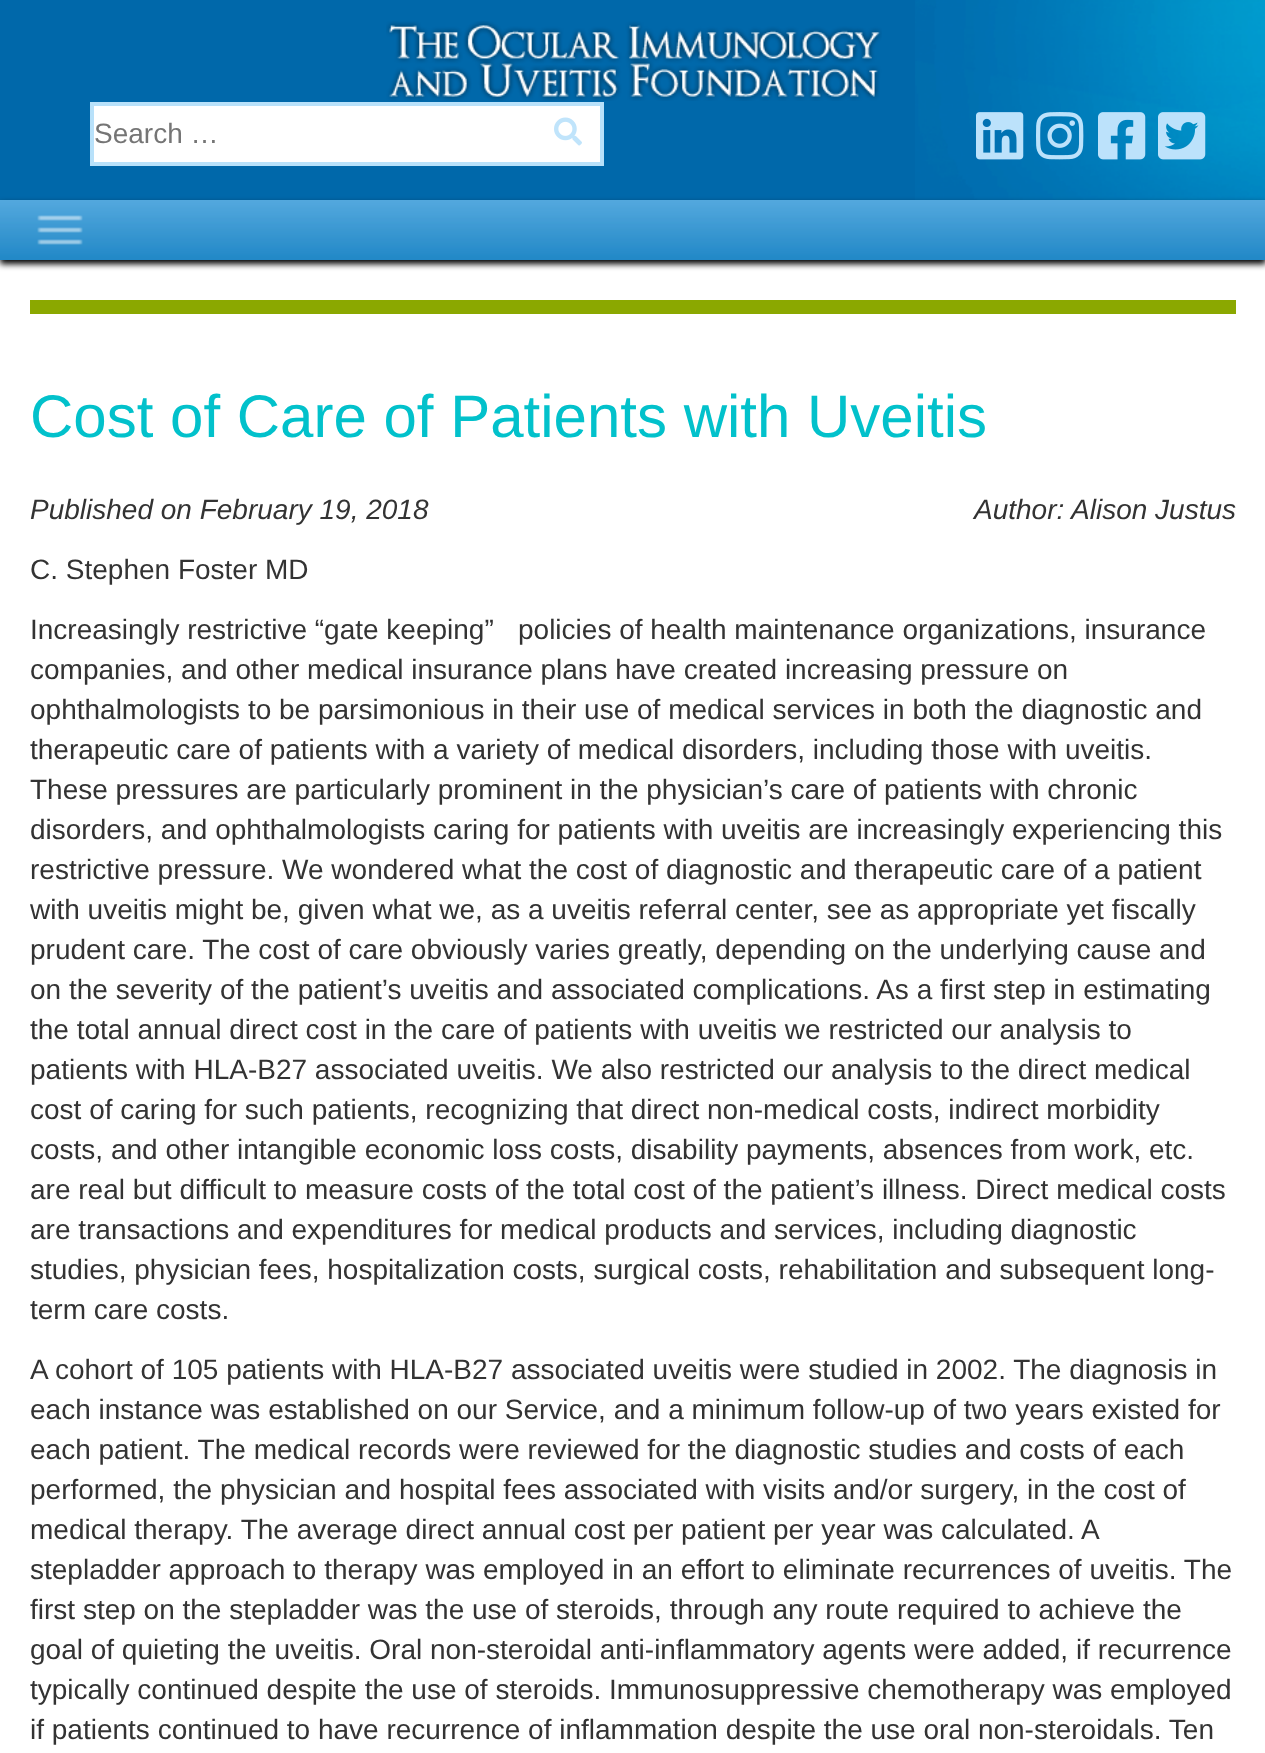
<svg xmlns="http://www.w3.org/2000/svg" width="1265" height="1753">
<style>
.a{font:28px Liberation Sans;fill:#757575}
.b{font:60px Liberation Sans;fill:#02c1cb}
.c{font:italic 28px Liberation Sans;fill:#333}
.d{font:28px Liberation Sans;fill:#333}
</style>
<rect width="100%" height="100%" fill="#fff"/>
<path fill="#0068aa" d="M0 0h915v200H0z"/>
<image href="1.png" x="915" y="0" width="350" height="200"/>
<image href="2.png" x="386" y="21" width="496" height="80"/>
<path fill="#fff" stroke="#b8e1fa" stroke-width="4" d="M92 104h510v60H92z"/>
<image href="3.png" x="554" y="117" width="28" height="29"/>
<image href="4.png" x="976" y="112" width="48" height="48"/>
<image href="5.png" x="1036" y="112" width="48" height="48"/>
<image href="6.png" x="1098" y="112" width="48" height="48"/>
<image href="7.png" x="1158" y="112" width="48" height="48"/>
<path fill="#000" filter="blur(3px)" d="M0 204h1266v60H0z"/>
<image href="8.png" x="0" y="200" width="1265" height="60"/>
<image href="9.png" x="37" y="215" width="46" height="30"/>
<path fill="#8ba800" d="M30 300h1206v14H30z"/>
<text class="a" x="94" y="143">Search …</text>
<text class="b" x="30" y="437">Cost of Care of Patients with Uveitis</text>
<text class="c" x="30" y="519">Published on February 19, 2018</text>
<text class="c" x="974" y="519">Author: Alison Justus</text>
<text class="d" x="30" y="579">C. Stephen Foster MD</text>
<text class="d" x="30" y="639">Increasingly restrictive “gate keeping”</text>
<text class="d" x="518" y="639">policies of health maintenance organizations, insurance</text>
<text class="d" x="30" y="679">companies, and other medical insurance plans have created increasing pressure on</text>
<text class="d" x="30" y="719">ophthalmologists to be parsimonious in their use of medical services in both the diagnostic and</text>
<text class="d" x="30" y="759">therapeutic care of patients with a variety of medical disorders, including those with uveitis.</text>
<text class="d" x="30" y="799">These pressures are particularly prominent in the physician’s care of patients with chronic</text>
<text class="d" x="30" y="839">disorders, and ophthalmologists caring for patients with uveitis are increasingly experiencing this</text>
<text class="d" x="30" y="879">restrictive pressure. We wondered what the cost of diagnostic and therapeutic care of a patient</text>
<text class="d" x="30" y="919">with uveitis might be, given what we, as a uveitis referral center, see as appropriate yet fiscally</text>
<text class="d" x="30" y="959">prudent care. The cost of care obviously varies greatly, depending on the underlying cause and</text>
<text class="d" x="30" y="999">on the severity of the patient’s uveitis and associated complications. As a first step in estimating</text>
<text class="d" x="30" y="1039">the total annual direct cost in the care of patients with uveitis we restricted our analysis to</text>
<text class="d" x="30" y="1079">patients with HLA-B27 associated uveitis. We also restricted our analysis to the direct medical</text>
<text class="d" x="30" y="1119">cost of caring for such patients, recognizing that direct non-medical costs, indirect morbidity</text>
<text class="d" x="30" y="1159">costs, and other intangible economic loss costs, disability payments, absences from work, etc.</text>
<text class="d" x="30" y="1199">are real but difficult to measure costs of the total cost of the patient’s illness. Direct medical costs</text>
<text class="d" x="30" y="1239">are transactions and expenditures for medical products and services, including diagnostic</text>
<text class="d" x="30" y="1279">studies, physician fees, hospitalization costs, surgical costs, rehabilitation and subsequent long-</text>
<text class="d" x="30" y="1319">term care costs.</text>
<text class="d" x="30" y="1379">A cohort of 105 patients with HLA-B27 associated uveitis were studied in 2002. The diagnosis in</text>
<text class="d" x="30" y="1419">each instance was established on our Service, and a minimum follow-up of two years existed for</text>
<text class="d" x="30" y="1459">each patient. The medical records were reviewed for the diagnostic studies and costs of each</text>
<text class="d" x="30" y="1499">performed, the physician and hospital fees associated with visits and/or surgery, in the cost of</text>
<text class="d" x="30" y="1539">medical therapy. The average direct annual cost per patient per year was calculated. A</text>
<text class="d" x="30" y="1579">stepladder approach to therapy was employed in an effort to eliminate recurrences of uveitis. The</text>
<text class="d" x="30" y="1619">first step on the stepladder was the use of steroids, through any route required to achieve the</text>
<text class="d" x="30" y="1659">goal of quieting the uveitis. Oral non-steroidal anti-inflammatory agents were added, if recurrence</text>
<text class="d" x="30" y="1699">typically continued despite the use of steroids. Immunosuppressive chemotherapy was employed</text>
<text class="d" x="30" y="1739">if patients continued to have recurrence of inflammation despite the use oral non-steroidals. Ten</text>
</svg>
